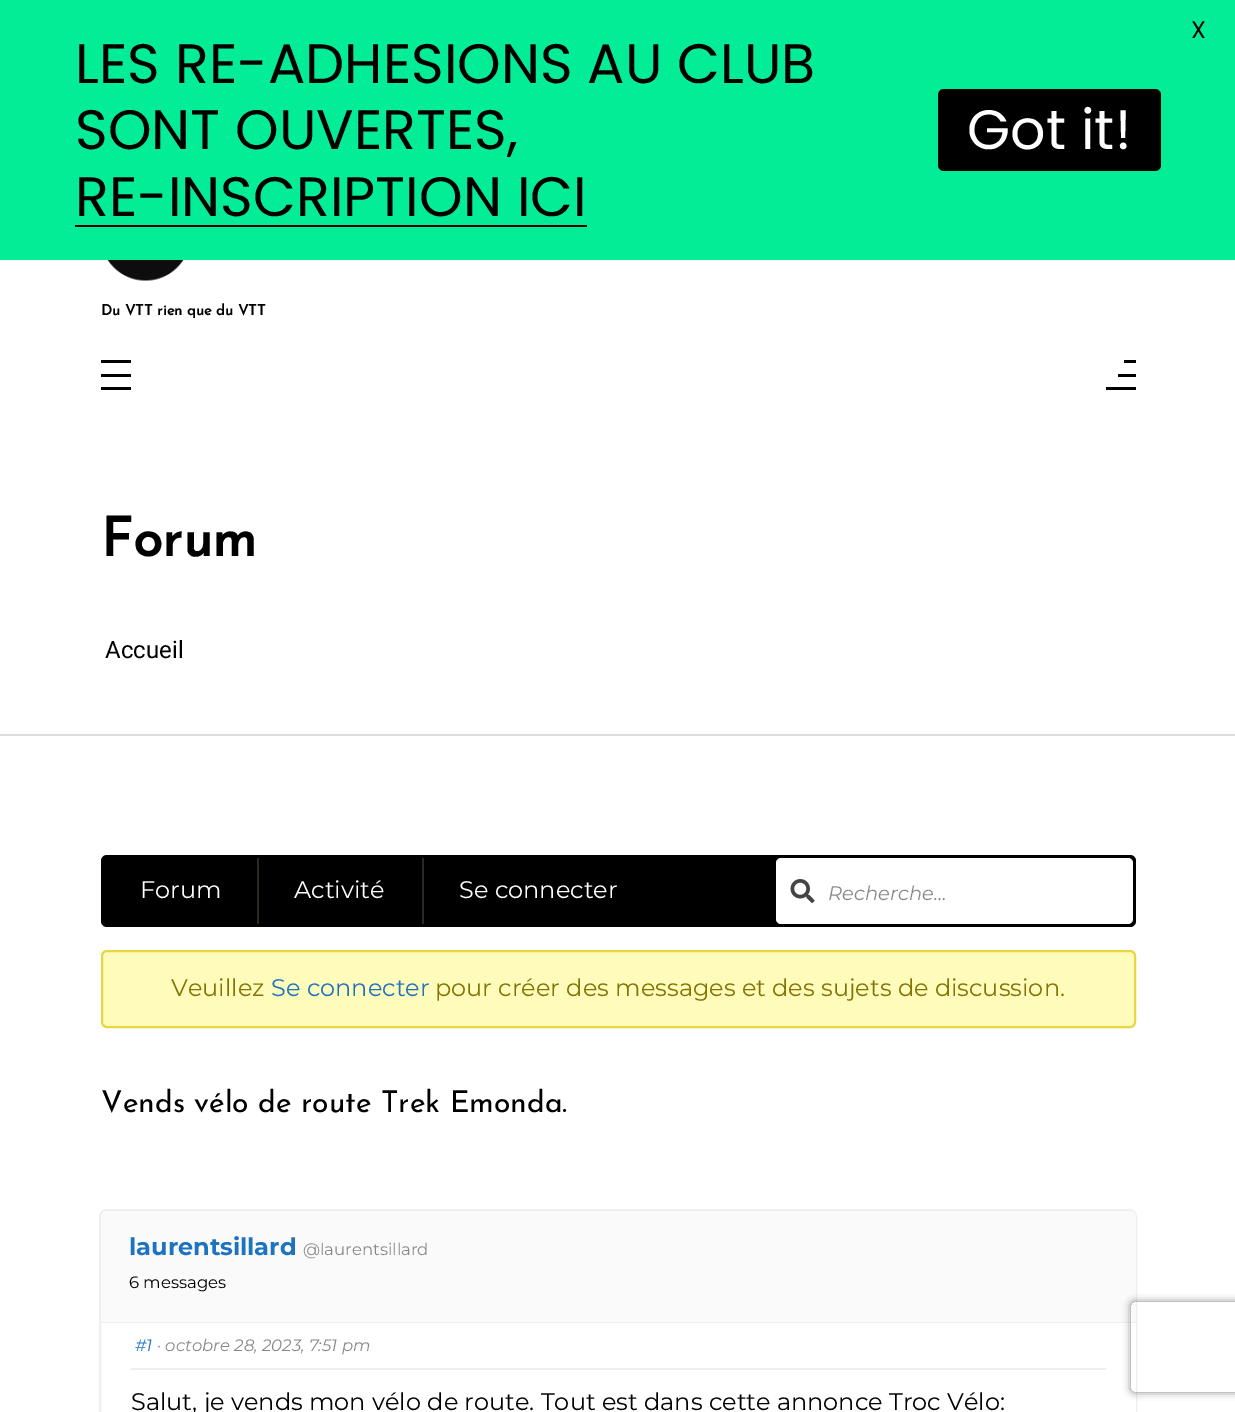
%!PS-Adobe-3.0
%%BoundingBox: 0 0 1235 1412
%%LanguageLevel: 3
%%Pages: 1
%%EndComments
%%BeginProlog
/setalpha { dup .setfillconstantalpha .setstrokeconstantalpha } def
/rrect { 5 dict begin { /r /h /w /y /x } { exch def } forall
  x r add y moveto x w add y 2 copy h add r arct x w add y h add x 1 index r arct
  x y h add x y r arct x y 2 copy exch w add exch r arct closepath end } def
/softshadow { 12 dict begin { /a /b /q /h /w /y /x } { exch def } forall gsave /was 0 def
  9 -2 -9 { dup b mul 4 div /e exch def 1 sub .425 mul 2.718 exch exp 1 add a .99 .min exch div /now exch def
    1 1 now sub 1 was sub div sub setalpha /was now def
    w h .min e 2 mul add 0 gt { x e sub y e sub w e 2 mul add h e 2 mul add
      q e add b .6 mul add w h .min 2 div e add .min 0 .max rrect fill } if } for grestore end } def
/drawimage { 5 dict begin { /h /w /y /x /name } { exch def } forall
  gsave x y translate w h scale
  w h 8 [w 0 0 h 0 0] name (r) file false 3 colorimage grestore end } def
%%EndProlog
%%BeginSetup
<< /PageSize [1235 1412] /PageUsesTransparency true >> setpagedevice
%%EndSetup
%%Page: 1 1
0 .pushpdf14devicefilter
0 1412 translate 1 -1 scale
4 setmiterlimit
1 setgray
0 0 1235 1412 rectfill
0.012 0.929 0.588 setrgbcolor
0 0 1235 260 rectfill
0 setgray
75 225 512 2 rectfill
938 89 223 82 6 rrect fill
(images/1.raw) 107 260 77 21 drawimage
101 360 30 3 rectfill
101 374 30 3 rectfill
101 387 30 3 rectfill
1124 360 12 3 rectfill
1118 374 18 3 rectfill
1106 387 30 3 rectfill
0.867 setgray
0 734 1235 2 rectfill
0 setgray
101 855 1035 72 6 rrect fill
0.169 0.165 0.133 setrgbcolor
257 858 2 66 rectfill
422 858 2 66 rectfill
1 setgray
776 858 357 66 5 rrect fill
(images/2.raw) 790 879 25 24 drawimage
1 0.984 0.733 setrgbcolor
102 951 1033 76 5 rrect gsave fill grestore
0.918 0.839 0.263 setrgbcolor
2 setlinewidth
stroke
0.933 setgray
100 1210 1036 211 7 rrect stroke
0.98 setgray
newpath 107 1211 moveto 1130 1211 lineto 1133.5 1211 1136 1213.5 1136 1217 curveto 1136 1323 lineto 101 1323 lineto 101 1217 lineto 101 1213.5 103.5 1211 107 1211 curveto closepath fill
0.933 setgray
101 1322 1035 1 rectfill
1 setgray
1135 1323 1 89 rectfill
0.933 setgray
131 1368 975 2 rectfill
gsave
newpath 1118 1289 moveto 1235 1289 lineto 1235 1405 lineto 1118 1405 lineto closepath 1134 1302 moveto 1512 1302 lineto 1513.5 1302 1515 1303.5 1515 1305 curveto 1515 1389 lineto 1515 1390.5 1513.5 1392 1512 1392 curveto 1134 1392 lineto 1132.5 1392 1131 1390.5 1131 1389 curveto 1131 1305 lineto 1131 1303.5 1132.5 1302 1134 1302 curveto closepath eoclip newpath
0.502 setgray
1131 1302 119 90 3 4 1 softshadow
grestore
/Poppins-Regular [24 0 0 -24 0 0] selectfont
0 setgray
1191 38 moveto (X) show
/Poppins-Regular [55.5 0 0 -55.5 0 0] selectfont
75 83 moveto (LES RE-ADHESIONS AU CLUB) show
75 149 moveto (SONT OUVERTES,) show
75 216 moveto (RE-INSCRIPTION ICI) show
1 setgray
967 149 moveto (Got it!) show
/JosefinSans-Bold [14.75 0 0 -14.75 0 0] selectfont
0 setgray
101 315 moveto (Du VTT rien que du VTT) show
/JosefinSans-Bold [54 0 0 -54 0 0] selectfont
101 556 moveto (Forum) show
/Roboto-Regular [24 0 0 -24 0 0] selectfont
105 658 moveto (Accueil) show
/Montserrat-Regular [24 0 0 -24 0 0] selectfont
1 setgray
140 898 moveto (Forum) show
294 898 moveto (Activité) show
459 898 moveto (Se connecter) show
/Montserrat-Italic [19.5 0 0 -19.5 0 0] selectfont
0.533 setgray
828 900 moveto (Recherche…) show
/Montserrat-Regular [24 0 0 -24 0 0] selectfont
0.51 0.451 0.008 setrgbcolor
171 996 moveto (Veuillez) show
0.118 0.451 0.745 setrgbcolor
271 996 moveto (Se connecter) show
0.51 0.451 0.008 setrgbcolor
435 996 moveto (pour créer des messages et des sujets de discussion.) show
/JosefinSans-Thin [30 0 0 -30 0 0] selectfont
0 setgray
101 1112 moveto (Vends vélo de route Trek Emonda.) show
/Montserrat-Bold [24 0 0 -24 0 0] selectfont
0.118 0.451 0.745 setrgbcolor
129 1255 moveto (laurentsillard) show
/Montserrat-Regular [16.5 0 0 -16.5 0 0] selectfont
0.533 setgray
303 1255 moveto (@laurentsillard) show
0 setgray
129 1288 moveto (6 messages) show
/Montserrat-Italic [16.5 0 0 -16.5 0 0] selectfont
0.118 0.451 0.745 setrgbcolor
135 1351 moveto (#1) show
0.533 setgray
157 1351 moveto (· octobre 28, 2023, 7:51 pm) show
/Montserrat-Regular [24 0 0 -24 0 0] selectfont
0 setgray
131 1410 moveto (Salut, je vends mon vélo de route. Tout est dans cette annonce Troc Vélo:) show
.poppdf14devicefilter showpage
%%EOF
